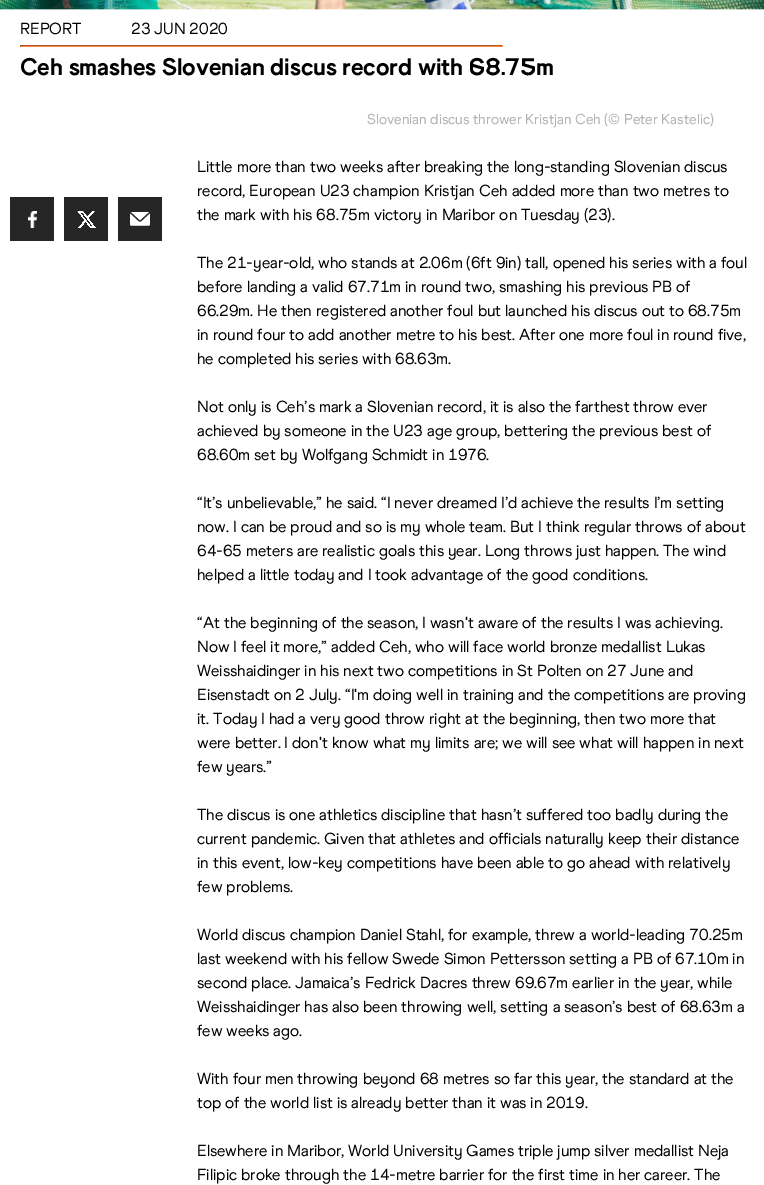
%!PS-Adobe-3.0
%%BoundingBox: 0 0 764 1185
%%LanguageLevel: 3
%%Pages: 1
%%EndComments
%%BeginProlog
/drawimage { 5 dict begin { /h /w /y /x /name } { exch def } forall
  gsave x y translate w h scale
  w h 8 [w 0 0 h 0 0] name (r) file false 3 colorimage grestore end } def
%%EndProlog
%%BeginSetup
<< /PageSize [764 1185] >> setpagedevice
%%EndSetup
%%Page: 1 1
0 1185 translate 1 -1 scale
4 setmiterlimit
1 setgray
0 0 764 1185 rectfill
(images/1.raw) 0 0 764 10 drawimage
0.667 0.353 0.157 setrgbcolor
20 45 483 1 rectfill
1 0.529 0.235 setrgbcolor
502 45 1 2 rectfill
20 46 483 1 rectfill
0.667 0.353 0.157 setrgbcolor
20 45 1 2 rectfill
0.149 setgray
10 197 44 44 rectfill
(images/2.raw) 28 211 9 17 drawimage
64 197 44 44 rectfill
(images/3.raw) 77 211 19 17 drawimage
118 197 44 44 rectfill
(images/4.raw) 130 212 20 14 drawimage
/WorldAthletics-Regular [16 0 0 -16 0 0] selectfont
0 setgray
20 34 moveto (REPORT) show
131 34 moveto (23 JUN 2020) show
/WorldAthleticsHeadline-ExtraBold [24 0 0 -24 0 0] selectfont
20 75 moveto (Ceh smashes Slovenian discus record with 68.75m) show
/WorldAthletics-Regular [14.4 0 0 -14.4 0 0] selectfont
0.698 setgray
367 124 moveto (Slovenian discus thrower Kristjan Ceh \(© Peter Kastelic\)) show
/WorldAthletics-Regular [16 0 0 -16 0 0] selectfont
0 setgray
197 172 moveto (Little more than two weeks after breaking the long-standing Slovenian discus) show
197 196 moveto (record, European U23 champion Kristjan Ceh added more than two metres to) show
197 220 moveto (the mark with his 68.75m victory in Maribor on Tuesday \(23\).) show
197 268 moveto (The 21-year-old, who stands at 2.06m \(6ft 9in\) tall, opened his series with a foul) show
197 292 moveto (before landing a valid 67.71m in round two, smashing his previous PB of) show
197 316 moveto (66.29m. He then registered another foul but launched his discus out to 68.75m) show
197 340 moveto (in round four to add another metre to his best. After one more foul in round five,) show
197 364 moveto (he completed his series with 68.63m.) show
197 412 moveto (Not only is Ceh’s mark a Slovenian record, it is also the farthest throw ever) show
197 436 moveto (achieved by someone in the U23 age group, bettering the previous best of) show
197 460 moveto (68.60m set by Wolfgang Schmidt in 1976.) show
197 508 moveto (“It’s unbelievable,” he said. “I never dreamed I’d achieve the results I’m setting) show
197 532 moveto (now. I can be proud and so is my whole team. But I think regular throws of about) show
197 556 moveto (64-65 meters are realistic goals this year. Long throws just happen. The wind) show
197 580 moveto (helped a little today and I took advantage of the good conditions.) show
197 628 moveto (“At the beginning of the season, I wasn't aware of the results I was achieving.) show
197 652 moveto (Now I feel it more,” added Ceh, who will face world bronze medallist Lukas) show
197 676 moveto (Weisshaidinger in his next two competitions in St Polten on 27 June and) show
197 700 moveto (Eisenstadt on 2 July. “I'm doing well in training and the competitions are proving) show
197 724 moveto (it. Today I had a very good throw right at the beginning, then two more that) show
197 748 moveto (were better. I don't know what my limits are; we will see what will happen in next) show
197 772 moveto (few years.”) show
197 820 moveto (The discus is one athletics discipline that hasn’t suffered too badly during the) show
197 844 moveto (current pandemic. Given that athletes and officials naturally keep their distance) show
197 868 moveto (in this event, low-key competitions have been able to go ahead with relatively) show
197 892 moveto (few problems.) show
197 940 moveto (World discus champion Daniel Stahl, for example, threw a world-leading 70.25m) show
197 964 moveto (last weekend with his fellow Swede Simon Pettersson setting a PB of 67.10m in) show
197 988 moveto (second place. Jamaica’s Fedrick Dacres threw 69.67m earlier in the year, while) show
197 1012 moveto (Weisshaidinger has also been throwing well, setting a season’s best of 68.63m a) show
197 1036 moveto (few weeks ago.) show
197 1084 moveto (With four men throwing beyond 68 metres so far this year, the standard at the) show
197 1108 moveto (top of the world list is already better than it was in 2019.) show
197 1156 moveto (Elsewhere in Maribor, World University Games triple jump silver medallist Neja) show
197 1180 moveto (Filipic broke through the 14-metre barrier for the first time in her career. The) show
showpage
%%EOF
